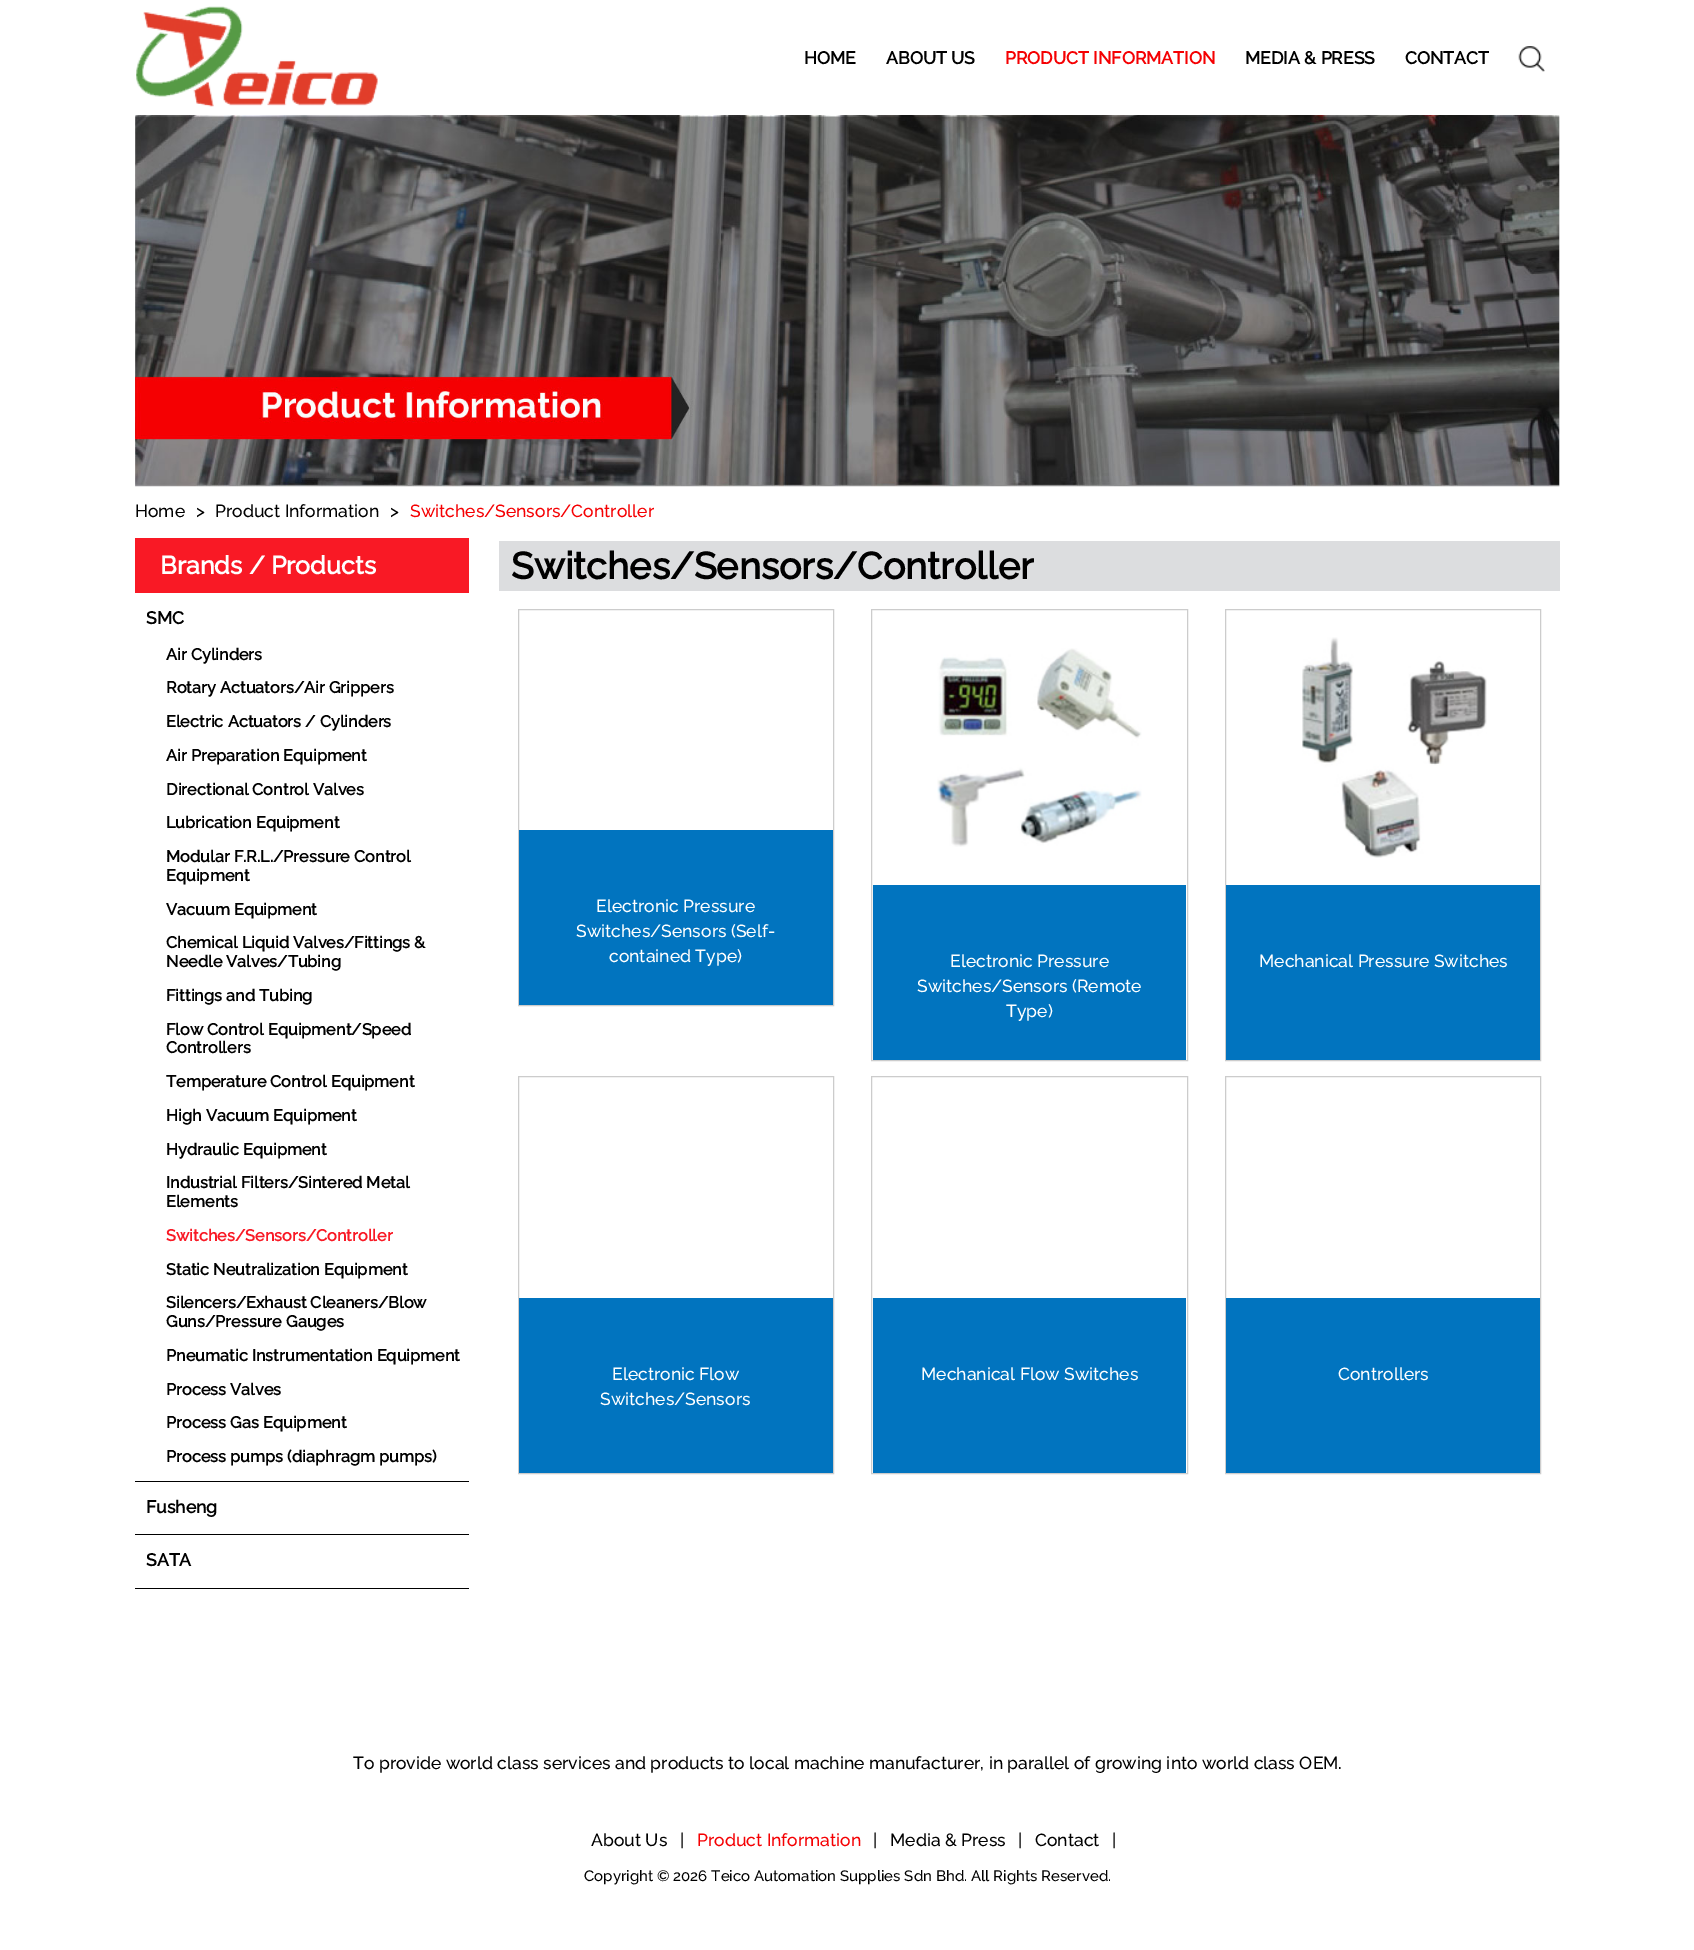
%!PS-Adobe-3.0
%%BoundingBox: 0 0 1694 1950
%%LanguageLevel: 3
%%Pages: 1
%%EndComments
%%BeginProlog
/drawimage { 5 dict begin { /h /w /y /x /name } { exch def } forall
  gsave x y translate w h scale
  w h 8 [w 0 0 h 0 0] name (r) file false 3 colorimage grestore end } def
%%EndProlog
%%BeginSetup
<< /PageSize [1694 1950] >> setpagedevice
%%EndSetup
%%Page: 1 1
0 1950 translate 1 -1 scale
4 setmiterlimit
1 setgray
0 0 1694 1950 rectfill
(images/1.raw) 136 6 242 101 drawimage
(images/2.raw) 1518 46 27 26 drawimage
(images/3.raw) 135 115 1425 372 drawimage
0.976 0.098 0.145 setrgbcolor
135 538 334 55 rectfill
0 setgray
135 1481 334 1 rectfill
135 1534 334 1 rectfill
135 1588 334 1 rectfill
0.863 0.867 0.875 setrgbcolor
499 541 1061 50 rectfill
0.8 setgray
518.5 609.5 315 396 rectstroke
0.004 0.455 0.749 setrgbcolor
519 830 314 175 rectfill
0.8 setgray
871.5 609.5 316 451 rectstroke
(images/4.raw) 937 648 205 199 drawimage
0.004 0.455 0.749 setrgbcolor
873 885 313 175 rectfill
0.8 setgray
1225.5 609.5 315 451 rectstroke
(images/5.raw) 1302 637 185 221 drawimage
0.004 0.455 0.749 setrgbcolor
1226 885 314 175 rectfill
0.8 setgray
518.5 1076.5 315 397 rectstroke
0.004 0.455 0.749 setrgbcolor
519 1298 314 175 rectfill
0.8 setgray
871.5 1076.5 316 397 rectstroke
0.004 0.455 0.749 setrgbcolor
873 1298 313 175 rectfill
0.8 setgray
1225.5 1076.5 315 397 rectstroke
0.004 0.455 0.749 setrgbcolor
1226 1298 314 175 rectfill
/Raleway-Bold [17.5 0 0 -17.5 0 0] selectfont
0 setgray
804 64 moveto (HOME) show
886 64 moveto (ABOUT US) show
0.961 0 0.008 setrgbcolor
1005 64 moveto (PRODUCT INFORMATION) show
0 setgray
1245 64 moveto (MEDIA & PRESS) show
1405 64 moveto (CONTACT) show
/Raleway-Thin [17.5 0 0 -17.5 0 0] selectfont
135 517 moveto (Home) show
196 517 moveto (>) show
215 517 moveto (Product Information) show
390 517 moveto (>) show
0.961 0 0.008 setrgbcolor
410 517 moveto (Switches/Sensors/Controller) show
/Raleway-Bold [25 0 0 -25 0 0] selectfont
1 setgray
160 574 moveto (Brands / Products) show
/Raleway-Bold [17.5 0 0 -17.5 0 0] selectfont
0 setgray
146 624 moveto (SMC) show
/Raleway-Bold [16.25 0 0 -16.25 0 0] selectfont
166 660 moveto (Air Cylinders) show
166 693 moveto (Rotary Actuators/Air Grippers) show
166 727 moveto (Electric Actuators / Cylinders) show
166 761 moveto (Air Preparation Equipment) show
166 795 moveto (Directional Control Valves) show
166 828 moveto (Lubrication Equipment) show
166 862 moveto (Modular F.R.L./Pressure Control) show
166 881 moveto (Equipment) show
166 915 moveto (Vacuum Equipment) show
166 948 moveto (Chemical Liquid Valves/Fittings &) show
166 967 moveto (Needle Valves/Tubing) show
166 1001 moveto (Fittings and Tubing) show
166 1035 moveto (Flow Control Equipment/Speed) show
166 1053 moveto (Controllers) show
166 1087 moveto (Temperature Control Equipment) show
166 1121 moveto (High Vacuum Equipment) show
166 1155 moveto (Hydraulic Equipment) show
166 1188 moveto (Industrial Filters/Sintered Metal) show
166 1207 moveto (Elements) show
0.976 0.098 0.145 setrgbcolor
166 1241 moveto (Switches/Sensors/Controller) show
0 setgray
166 1275 moveto (Static Neutralization Equipment) show
166 1308 moveto (Silencers/Exhaust Cleaners/Blow) show
166 1327 moveto (Guns/Pressure Gauges) show
166 1361 moveto (Pneumatic Instrumentation Equipment) show
166 1395 moveto (Process Valves) show
166 1428 moveto (Process Gas Equipment) show
166 1462 moveto (Process pumps \(diaphragm pumps\)) show
/Raleway-Bold [17.5 0 0 -17.5 0 0] selectfont
146 1513 moveto (Fusheng) show
146 1566 moveto (SATA) show
/Raleway-Bold [37.5 0 0 -37.5 0 0] selectfont
511 579 moveto (Switches/Sensors/Controller) show
/Raleway-Thin [17.5 0 0 -17.5 0 0] selectfont
1 setgray
596 912 moveto (Electronic Pressure) show
576 937 moveto (Switches/Sensors \(Self-) show
609 962 moveto (contained Type\)) show
950 967 moveto (Electronic Pressure) show
917 992 moveto (Switches/Sensors \(Remote) show
1006 1017 moveto (Type\)) show
1259 967 moveto (Mechanical Pressure Switches) show
612 1380 moveto (Electronic Flow) show
600 1405 moveto (Switches/Sensors) show
921 1380 moveto (Mechanical Flow Switches) show
1338 1380 moveto (Controllers) show
0 setgray
353 1769 moveto (To provide world class services and products to local machine manufacturer, in parallel of growing into world class OEM.) show
591 1846 moveto (About Us) show
680 1846 moveto (|) show
0.961 0 0.008 setrgbcolor
697 1846 moveto (Product Information) show
0 setgray
873 1846 moveto (|) show
890 1846 moveto (Media & Press) show
1018 1846 moveto (|) show
1035 1846 moveto (Contact) show
1112 1846 moveto (|) show
/Raleway-Thin [15 0 0 -15 0 0] selectfont
584 1881 moveto (Copyright © 2026 Teico Automation Supplies Sdn Bhd. All Rights Reserved.) show
showpage
%%EOF
